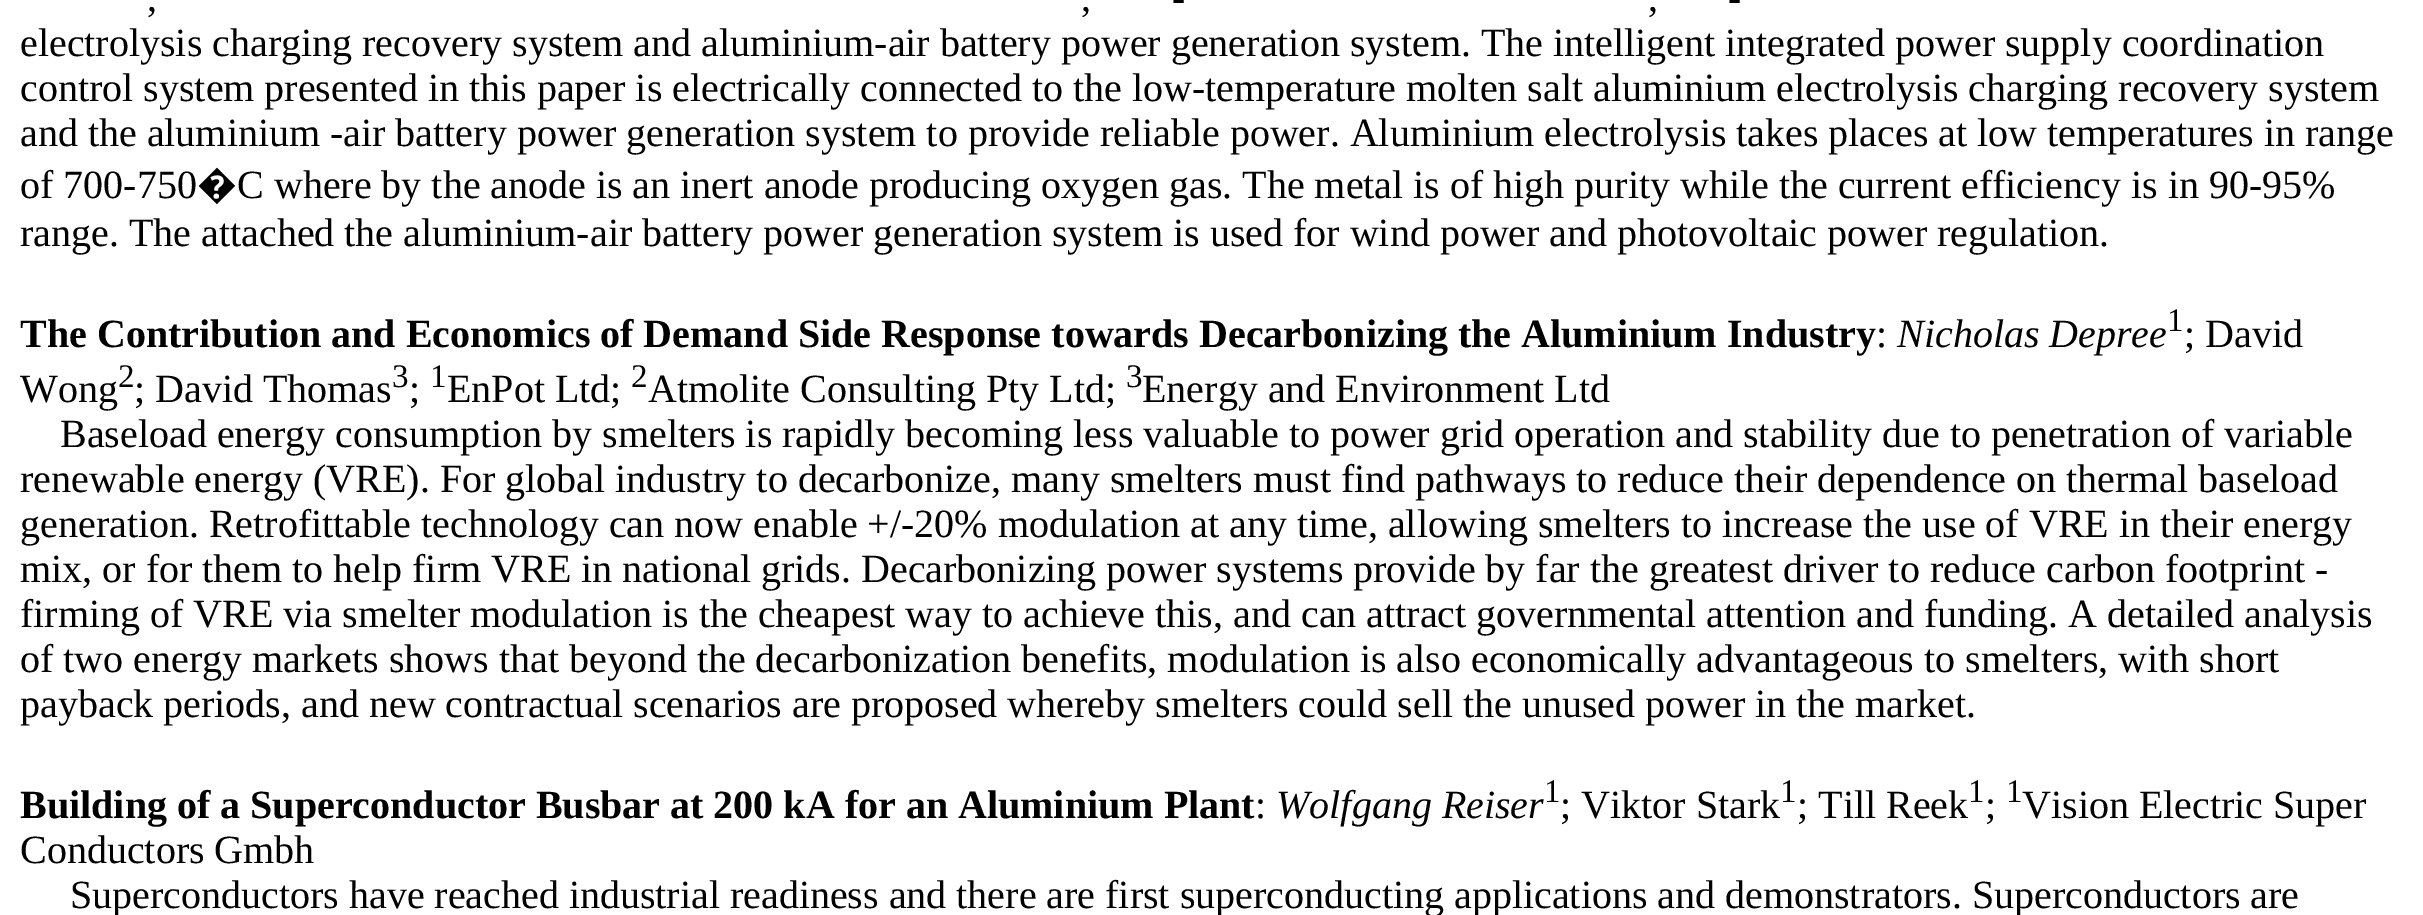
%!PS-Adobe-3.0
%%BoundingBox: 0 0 2423 915
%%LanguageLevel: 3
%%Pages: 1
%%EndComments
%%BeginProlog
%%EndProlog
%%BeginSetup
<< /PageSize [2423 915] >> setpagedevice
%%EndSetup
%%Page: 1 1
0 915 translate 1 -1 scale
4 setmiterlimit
1 setgray
0 0 2423 915 rectfill
/LiberationSerif-Regular [40 0 0 -40 0 0] selectfont
0 setgray
1172 11 moveto (-) show
1728 11 moveto (-) show
147 11 moveto (,) show
1081 11 moveto (,) show
1648 11 moveto (,) show
20 56 moveto (electrolysis charging recovery system and aluminium-air battery power generation system. The intelligent integrated power supply coordination) show
20 101 moveto (control system presented in this paper is electrically connected to the low-temperature molten salt aluminium electrolysis charging recovery system) show
20 146 moveto (and the aluminium -air battery power generation system to provide reliable power. Aluminium electrolysis takes places at low temperatures in range) show
20 198 moveto (of 700-750) show
/NotoSans-Regular [40 0 0 -40 0 0] selectfont
197 198 moveto (�) show
/LiberationSerif-Regular [40 0 0 -40 0 0] selectfont
237 198 moveto (C where by the anode is an inert anode producing oxygen gas. The metal is of high purity while the current efficiency is in 90-95%) show
20 246 moveto (range. The attached the aluminium-air battery power generation system is used for wind power and photovoltaic power regulation.) show
/LiberationSerif-Bold [40 0 0 -40 0 0] selectfont
20 347 moveto (The Contribution and Economics of Demand Side Response towards Decarbonizing the Aluminium Industry) show
/LiberationSerif-Regular [40 0 0 -40 0 0] selectfont
1876 347 moveto (:) show
/LiberationSerif-Italic [40 0 0 -40 0 0] selectfont
1897 347 moveto (Nicholas Depree) show
/LiberationSerif-Regular [33 0 0 -33 0 0] selectfont
2167 331 moveto (1) show
/LiberationSerif-Regular [40 0 0 -40 0 0] selectfont
2184 347 moveto (; David) show
20 402 moveto (Wong) show
/LiberationSerif-Regular [33 0 0 -33 0 0] selectfont
118 387 moveto (2) show
/LiberationSerif-Regular [40 0 0 -40 0 0] selectfont
134 402 moveto (; David Thomas) show
/LiberationSerif-Regular [33 0 0 -33 0 0] selectfont
392 387 moveto (3) show
/LiberationSerif-Regular [40 0 0 -40 0 0] selectfont
409 402 moveto (;) show
/LiberationSerif-Regular [33 0 0 -33 0 0] selectfont
430 387 moveto (1) show
/LiberationSerif-Regular [40 0 0 -40 0 0] selectfont
447 402 moveto (EnPot Ltd;) show
/LiberationSerif-Regular [33 0 0 -33 0 0] selectfont
631 387 moveto (2) show
/LiberationSerif-Regular [40 0 0 -40 0 0] selectfont
648 402 moveto (Atmolite Consulting Pty Ltd;) show
/LiberationSerif-Regular [33 0 0 -33 0 0] selectfont
1126 387 moveto (3) show
/LiberationSerif-Regular [40 0 0 -40 0 0] selectfont
1142 402 moveto (Energy and Environment Ltd) show
60 447 moveto (Baseload energy consumption by smelters is rapidly becoming less valuable to power grid operation and stability due to penetration of variable) show
20 492 moveto (renewable energy \(VRE\). For global industry to decarbonize, many smelters must find pathways to reduce their dependence on thermal baseload) show
20 537 moveto (generation. Retrofittable technology can now enable +/-20% modulation at any time, allowing smelters to increase the use of VRE in their energy) show
20 582 moveto (mix, or for them to help firm VRE in national grids. Decarbonizing power systems provide by far the greatest driver to reduce carbon footprint -) show
20 627 moveto (firming of VRE via smelter modulation is the cheapest way to achieve this, and can attract governmental attention and funding. A detailed analysis) show
20 672 moveto (of two energy markets shows that beyond the decarbonization benefits, modulation is also economically advantageous to smelters, with short) show
20 717 moveto (payback periods, and new contractual scenarios are proposed whereby smelters could sell the unused power in the market.) show
/LiberationSerif-Bold [40 0 0 -40 0 0] selectfont
20 818 moveto (Building of a Superconductor Busbar at 200 kA for an Aluminium Plant) show
/LiberationSerif-Regular [40 0 0 -40 0 0] selectfont
1255 818 moveto (:) show
/LiberationSerif-Italic [40 0 0 -40 0 0] selectfont
1276 818 moveto (Wolfgang Reiser) show
/LiberationSerif-Regular [33 0 0 -33 0 0] selectfont
1544 802 moveto (1) show
/LiberationSerif-Regular [40 0 0 -40 0 0] selectfont
1560 818 moveto (; Viktor Stark) show
/LiberationSerif-Regular [33 0 0 -33 0 0] selectfont
1780 802 moveto (1) show
/LiberationSerif-Regular [40 0 0 -40 0 0] selectfont
1797 818 moveto (; Till Reek) show
/LiberationSerif-Regular [33 0 0 -33 0 0] selectfont
1968 802 moveto (1) show
/LiberationSerif-Regular [40 0 0 -40 0 0] selectfont
1985 818 moveto (;) show
/LiberationSerif-Regular [33 0 0 -33 0 0] selectfont
2006 802 moveto (1) show
/LiberationSerif-Regular [40 0 0 -40 0 0] selectfont
2022 818 moveto (Vision Electric Super) show
20 863 moveto (Conductors Gmbh) show
70 908 moveto (Superconductors have reached industrial readiness and there are first superconducting applications and demonstrators. Superconductors are) show
showpage
%%EOF
